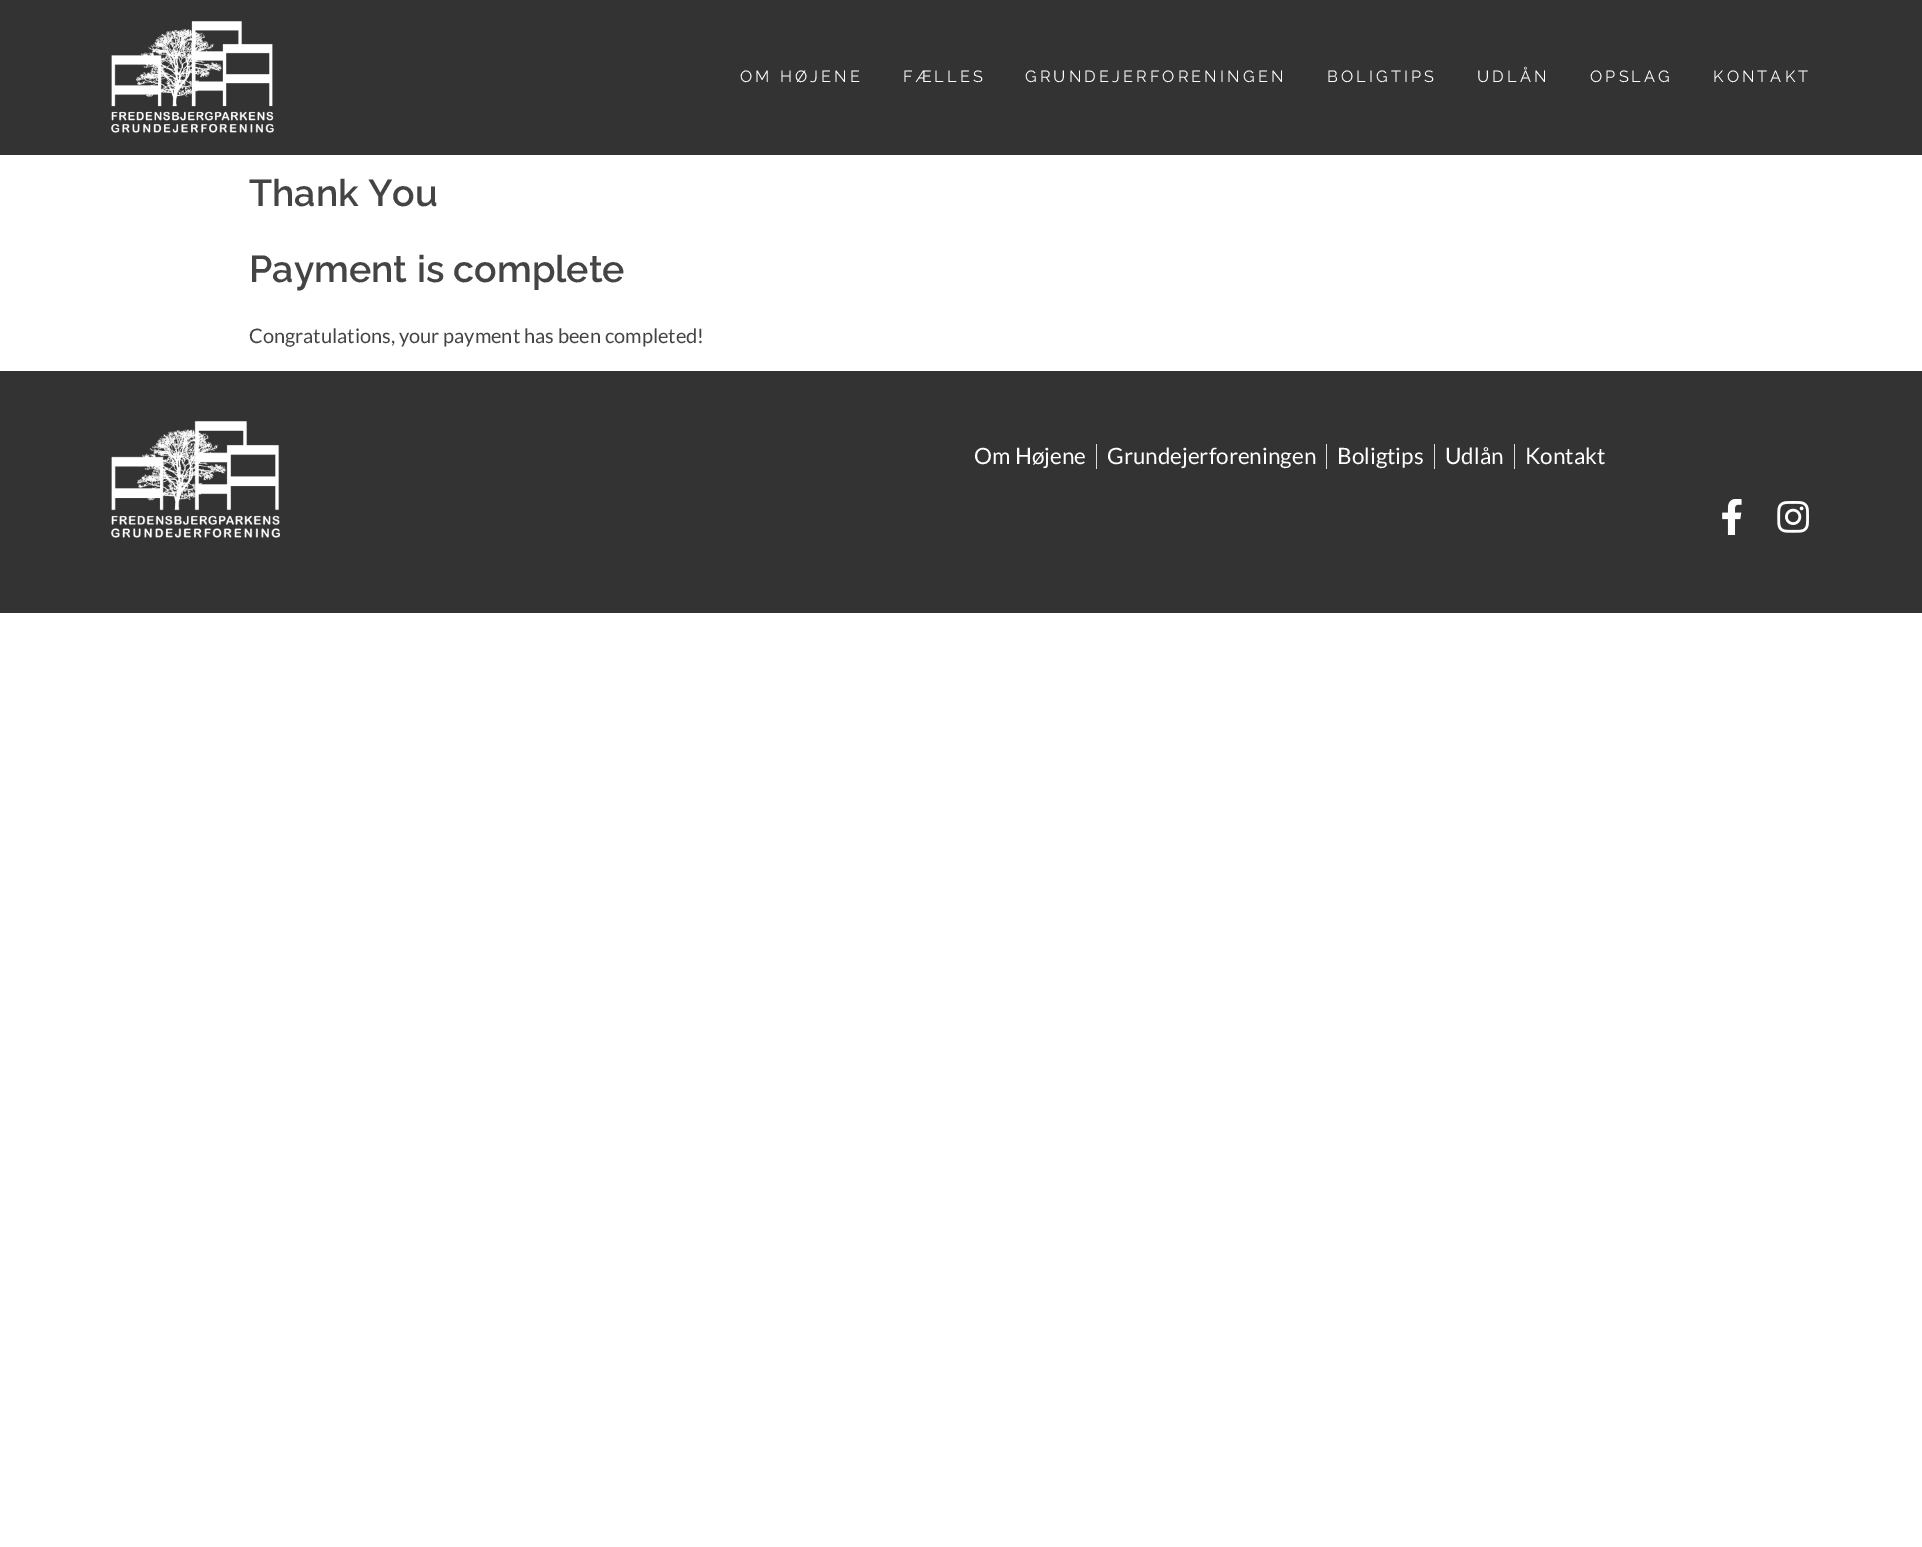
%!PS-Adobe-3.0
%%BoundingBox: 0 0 1922 1547
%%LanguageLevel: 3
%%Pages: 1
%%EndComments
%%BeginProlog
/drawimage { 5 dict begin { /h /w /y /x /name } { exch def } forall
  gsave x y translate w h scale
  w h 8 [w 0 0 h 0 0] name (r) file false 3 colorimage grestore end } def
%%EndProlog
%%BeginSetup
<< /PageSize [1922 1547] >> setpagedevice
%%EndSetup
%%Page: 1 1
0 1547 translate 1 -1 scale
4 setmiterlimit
1 setgray
0 0 1922 1547 rectfill
0.2 setgray
0 0 1922 155 rectfill
(images/1.raw) 111 21 163 112 drawimage
0 371 1922 242 rectfill
(images/2.raw) 111 421 169 117 drawimage
0.867 setgray
1096 444 1 25 rectfill
1326 444 1 25 rectfill
1434 444 1 25 rectfill
1514 444 1 25 rectfill
(images/3.raw) 1722 499 20 36 drawimage
(images/4.raw) 1777 501 32 32 drawimage
/Raleway-Regular [16.25 0 0 -16.25 0 0] selectfont
1 setgray
740 82 moveto 3.1 0 (OM HØJENE) ashow
903 82 moveto 3.1 0 (FÆLLES) ashow
1025 82 moveto 3.1 0 (GRUNDEJERFORENINGEN) ashow
1327 82 moveto 3.1 0 (BOLIGTIPS) ashow
1477 82 moveto 3.1 0 (UDLÅN) ashow
1590 82 moveto 3.1 0 (OPSLAG) ashow
1713 82 moveto 3.1 0 (KONTAKT) ashow
/Raleway-SemiBold [37.5 0 0 -37.5 0 0] selectfont
0.267 setgray
249 206 moveto (Thank You) show
249 282 moveto (Payment is complete) show
/Lato-Regular [20 0 0 -20 0 0] selectfont
249 343 moveto (Congratulations, your payment has been completed!) show
/Lato-Regular [22.5 0 0 -22.5 0 0] selectfont
1 setgray
974 464 moveto (Om Højene) show
1107 464 moveto (Grundejerforeningen) show
1337 464 moveto (Boligtips) show
1445 464 moveto (Udlån) show
1525 464 moveto (Kontakt) show
showpage
%%EOF
